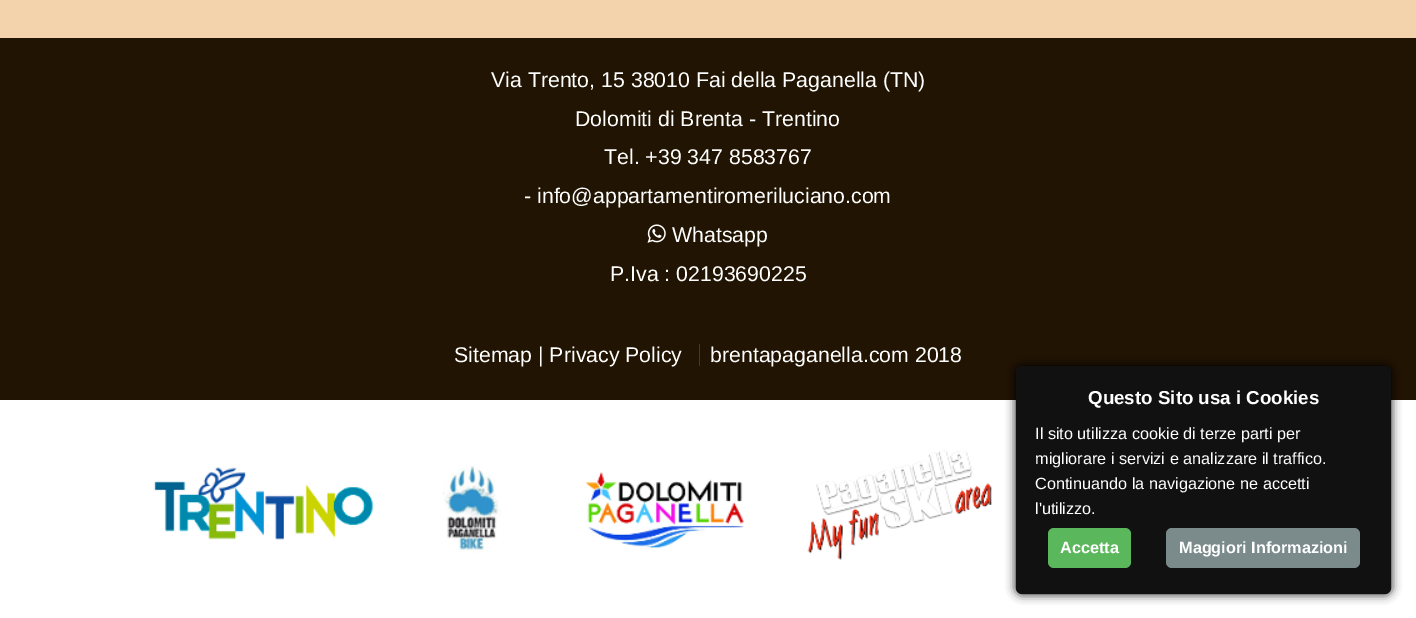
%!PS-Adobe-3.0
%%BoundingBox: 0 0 1416 618
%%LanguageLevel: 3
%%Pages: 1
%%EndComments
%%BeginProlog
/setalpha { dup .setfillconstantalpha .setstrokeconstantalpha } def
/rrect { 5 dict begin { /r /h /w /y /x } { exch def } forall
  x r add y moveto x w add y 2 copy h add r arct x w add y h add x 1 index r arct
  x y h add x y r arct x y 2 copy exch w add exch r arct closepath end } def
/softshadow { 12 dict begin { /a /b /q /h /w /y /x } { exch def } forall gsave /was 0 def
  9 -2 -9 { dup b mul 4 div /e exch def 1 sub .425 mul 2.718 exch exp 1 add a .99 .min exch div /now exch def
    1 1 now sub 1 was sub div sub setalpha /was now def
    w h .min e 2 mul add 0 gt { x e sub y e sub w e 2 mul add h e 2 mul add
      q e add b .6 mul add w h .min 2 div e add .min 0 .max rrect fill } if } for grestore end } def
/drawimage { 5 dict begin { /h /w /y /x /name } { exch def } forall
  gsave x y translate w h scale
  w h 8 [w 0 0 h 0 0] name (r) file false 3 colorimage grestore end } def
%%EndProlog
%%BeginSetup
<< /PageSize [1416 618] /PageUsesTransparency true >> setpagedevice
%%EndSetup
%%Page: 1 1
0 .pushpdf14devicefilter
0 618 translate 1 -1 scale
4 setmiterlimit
0.129 0.078 0.012 setrgbcolor
0 0 1416 618 rectfill
0.949 0.827 0.671 setrgbcolor
0 0 1416 38 rectfill
(images/1.raw) 647 224 19 19 drawimage
0.259 0.227 0.184 setrgbcolor
699 344 1 22 rectfill
1 setgray
0 400 1416 218 rectfill
(images/2.raw) 153 467 221 73 drawimage
(images/3.raw) 442 465 60 88 drawimage
(images/4.raw) 585 472 159 77 drawimage
(images/5.raw) 807 450 185 110 drawimage
0 setgray
1016 366 375 228 6 5 1 softshadow
0.067 setgray
1016 366 375 228 6 rrect fill
0.357 0.718 0.357 setrgbcolor
1048 528 83 40 6 rrect fill
0.482 0.541 0.545 setrgbcolor
1166 528 194 40 6 rrect fill
/LiberationSans-Regular [21.3 0 0 -21.3 0 0] selectfont
1 setgray
491 87 moveto (Via Trento, 15 38010 Fai della Paganella \(TN\)) show
575 126 moveto (Dolomiti di Brenta - Trentino) show
604 164 moveto (Tel. +39 347 8583767) show
524 203 moveto (- info@appartamentiromeriluciano.com) show
672 242 moveto (Whatsapp) show
610 281 moveto (P.Iva : 02193690225) show
454 362 moveto (Sitemap | Privacy Policy) show
710 362 moveto (brentapaganella.com 2018) show
/LiberationSans-Bold [18.75 0 0 -18.75 0 0] selectfont
1088 404 moveto (Questo Sito usa i Cookies) show
/LiberationSans-Regular [16.25 0 0 -16.25 0 0] selectfont
1035 439 moveto (Il sito utilizza cookie di terze parti per) show
1035 464 moveto (migliorare i servizi e analizzare il traffico.) show
1035 489 moveto (Continuando la navigazione ne accetti) show
1035 514 moveto (l'utilizzo.) show
/LiberationSans-Bold [16.25 0 0 -16.25 0 0] selectfont
1060 553 moveto (Accetta) show
1179 553 moveto (Maggiori Informazioni) show
.poppdf14devicefilter showpage
%%EOF
